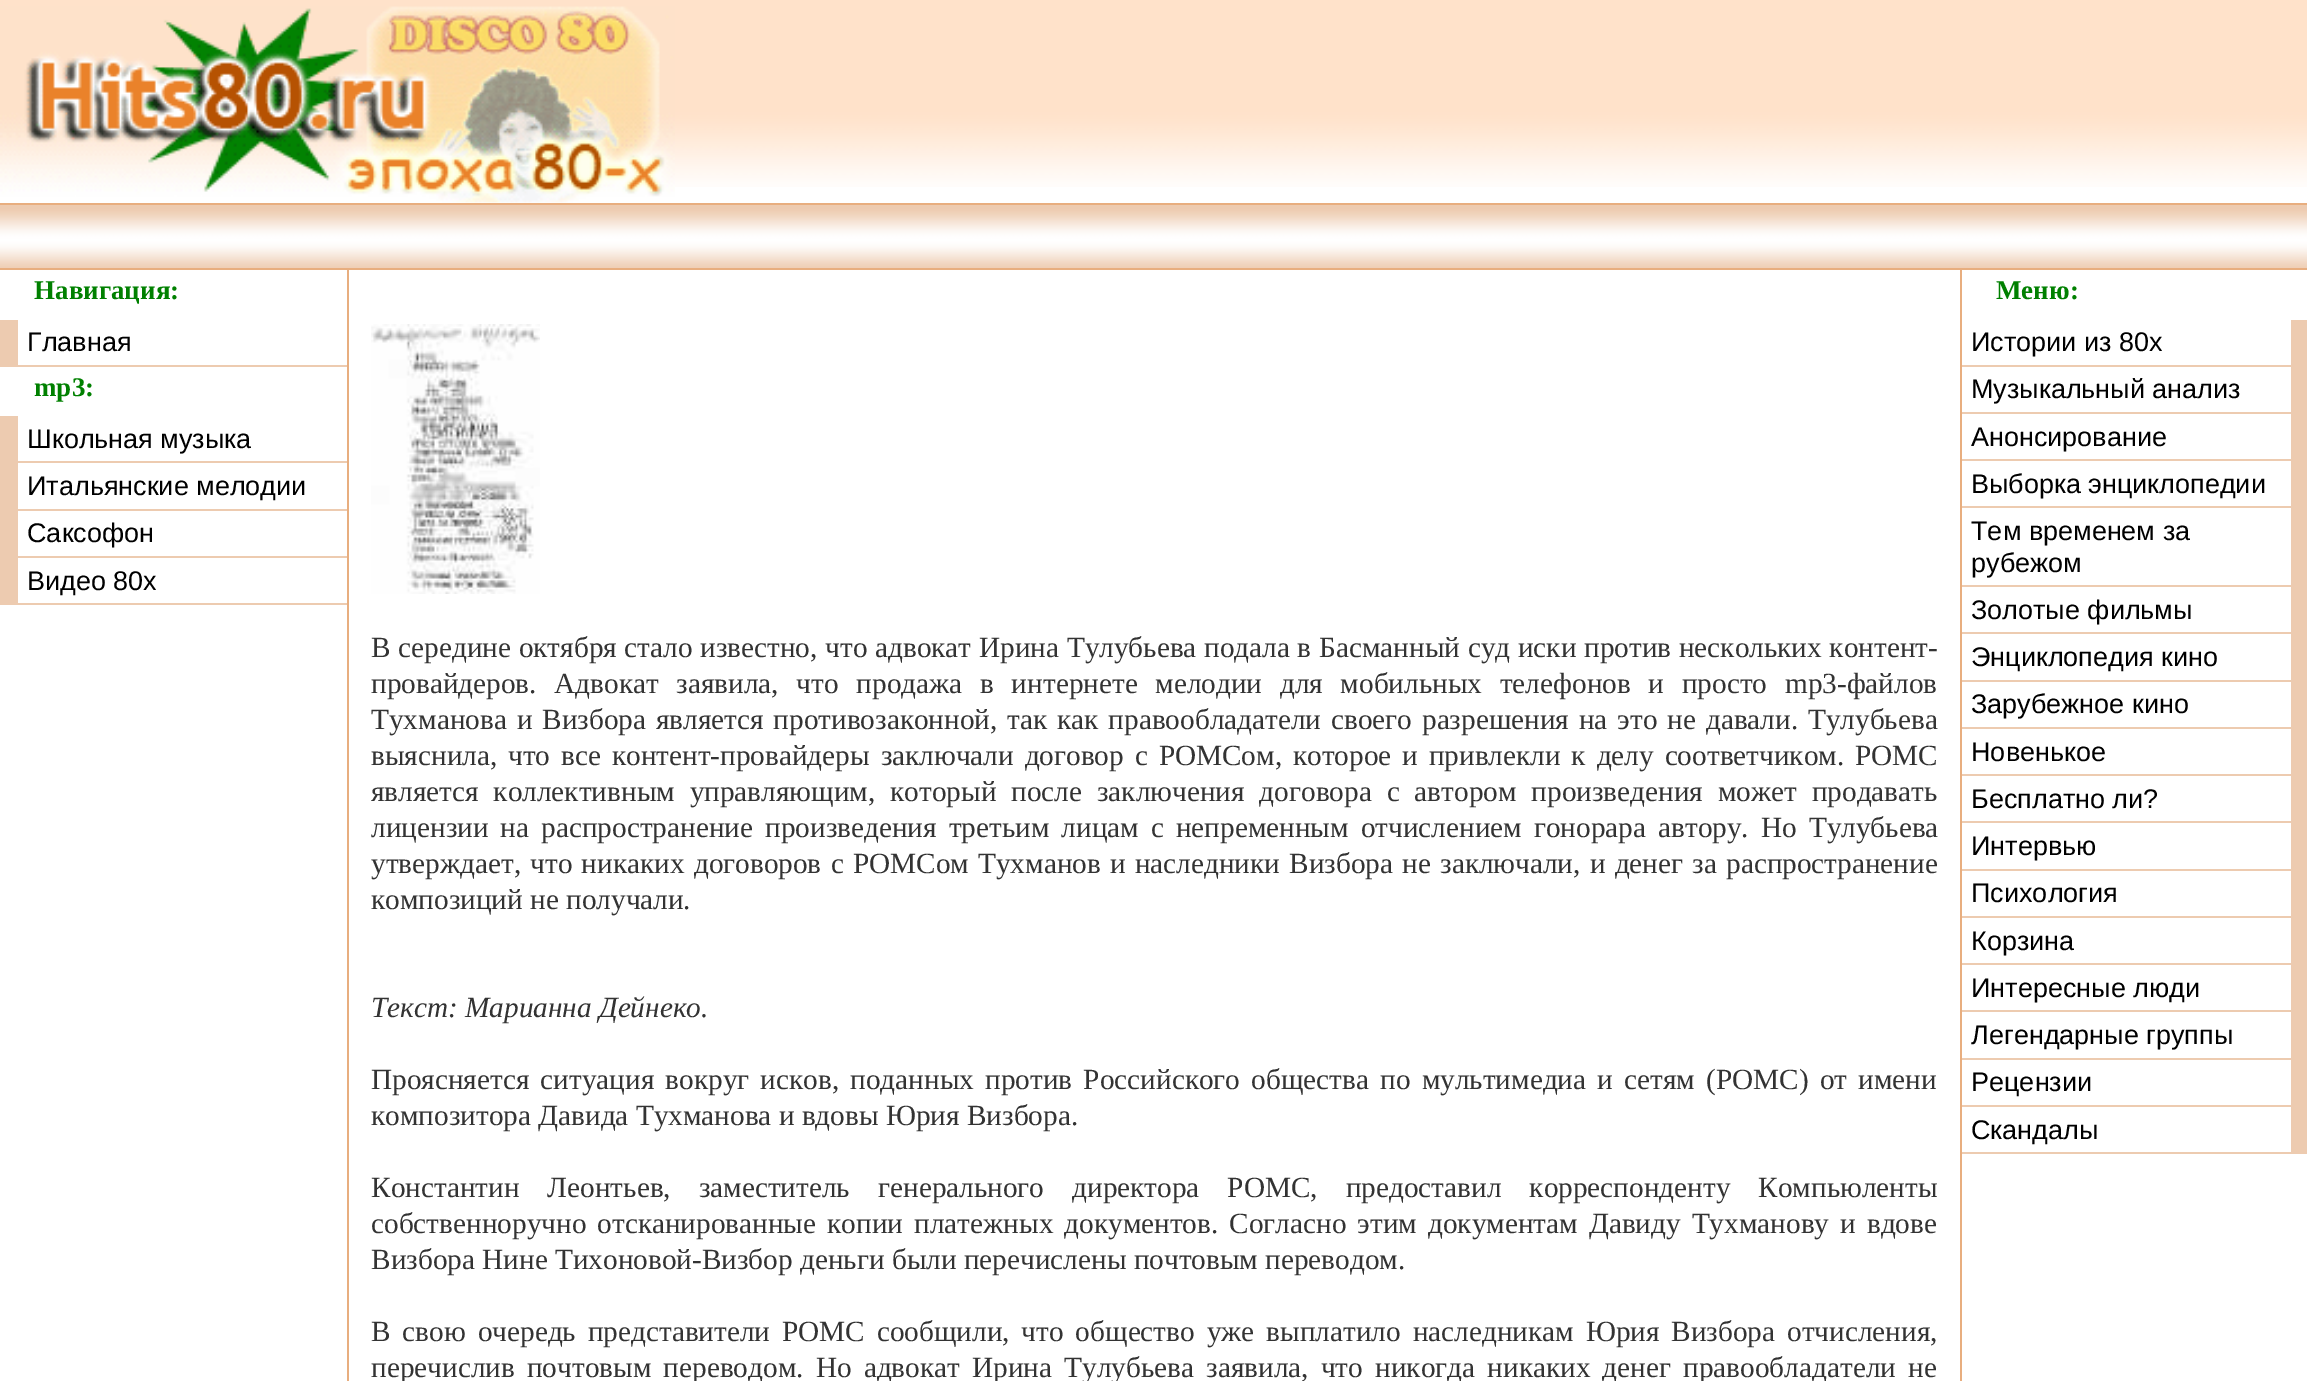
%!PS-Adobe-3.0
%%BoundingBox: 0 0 2307 1381
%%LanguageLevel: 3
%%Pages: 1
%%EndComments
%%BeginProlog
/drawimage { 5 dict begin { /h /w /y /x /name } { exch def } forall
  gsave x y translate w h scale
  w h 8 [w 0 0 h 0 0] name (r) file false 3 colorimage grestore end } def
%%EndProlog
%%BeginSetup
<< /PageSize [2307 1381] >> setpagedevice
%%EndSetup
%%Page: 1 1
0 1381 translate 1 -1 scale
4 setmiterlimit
1 setgray
0 0 2307 1381 rectfill
(images/1.raw) 0 0 2307 187 drawimage
(images/2.raw) 0 6 675 197 drawimage
(images/3.raw) 0 205 2307 63 drawimage
0.91 0.682 0.498 setrgbcolor
0 203 2307 2 rectfill
0 268 2307 2 rectfill
0.929 0.796 0.69 setrgbcolor
18 365 329 2 rectfill
0 320 18 47 rectfill
18 461 329 2 rectfill
0 416 18 189 rectfill
18 509 329 2 rectfill
18 556 329 2 rectfill
18 603 329 2 rectfill
0.91 0.682 0.498 setrgbcolor
1960 270 2 1111 rectfill
347 270 2 1111 rectfill
(images/4.raw) 371 324 169 270 drawimage
0.929 0.796 0.69 setrgbcolor
2291 320 16 45 rectfill
1962 365 345 2 rectfill
2291 367 16 45 rectfill
1962 412 345 2 rectfill
2291 414 16 45 rectfill
1962 459 345 2 rectfill
2291 461 16 124 rectfill
1962 506 329 2 rectfill
1962 585 345 2 rectfill
2291 587 16 93 rectfill
1962 632 329 2 rectfill
1962 680 345 2 rectfill
2291 682 16 45 rectfill
1962 727 345 2 rectfill
2291 729 16 45 rectfill
1962 774 345 2 rectfill
2291 776 16 93 rectfill
1962 821 329 2 rectfill
1962 869 345 2 rectfill
2291 871 16 45 rectfill
1962 916 345 2 rectfill
2291 918 16 45 rectfill
1962 963 345 2 rectfill
2291 965 16 93 rectfill
1962 1010 329 2 rectfill
1962 1058 345 2 rectfill
2291 1060 16 45 rectfill
1962 1105 345 2 rectfill
2291 1107 16 45 rectfill
1962 1152 345 2 rectfill
/LiberationSerif-Bold [27 0 0 -27 0 0] selectfont
0 0.502 0 setrgbcolor
34 299 moveto (Навигация:) show
/LiberationSans-Regular [27 0 0 -27 0 0] selectfont
0 setgray
27 351 moveto (Главная) show
/LiberationSerif-Bold [27 0 0 -27 0 0] selectfont
0 0.502 0 setrgbcolor
34 396 moveto (mp3:) show
/LiberationSans-Regular [27 0 0 -27 0 0] selectfont
0 setgray
27 448 moveto (Школьная музыка) show
27 495 moveto (Итальянские мелодии) show
27 542 moveto (Саксофон) show
27 590 moveto (Видео 80х) show
/LiberationSerif-Regular [29.25 0 0 -29.25 0 0] selectfont
0.2 setgray
371 657 moveto 0.4 0 32 (В середине октября стало известно, что адвокат Ирина Тулубьева подала в Басманный суд иски против нескольких контент-) widthshow
371 693 moveto 10.4 0 32 (провайдеров. Адвокат заявила, что продажа в интернете мелодии для мобильных телефонов и просто mp3-файлов) widthshow
371 729 moveto 2.6 0 32 (Тухманова и Визбора является противозаконной, так как правообладатели своего разрешения на это не давали. Тулубьева) widthshow
371 765 moveto 3.6 0 32 (выяснила, что все контент-провайдеры заключали договор с РОМСом, которое и привлекли к делу соответчиком. РОМС) widthshow
371 801 moveto 7.6 0 32 (является коллективным управляющим, который после заключения договора с автором произведения может продавать) widthshow
371 837 moveto 4.75 0 32 (лицензии на распространение произведения третьим лицам с непременным отчислением гонорара автору. Но Тулубьева) widthshow
371 873 moveto 1.9 0 32 (утверждает, что никаких договоров с РОМСом Тухманов и наследники Визбора не заключали, и денег за распространение) widthshow
371 909 moveto (композиций не получали.) show
/LiberationSerif-Italic [29.25 0 0 -29.25 0 0] selectfont
371 1017 moveto (Текст: Марианна Дейнеко.) show
/LiberationSerif-Regular [29.25 0 0 -29.25 0 0] selectfont
371 1089 moveto 3.9 0 32 (Проясняется ситуация вокруг исков, поданных против Российского общества по мультимедиа и сетям \(РОМС\) от имени) widthshow
371 1125 moveto (композитора Давида Тухманова и вдовы Юрия Визбора.) show
371 1197 moveto 20.75 0 32 (Константин Леонтьев, заместитель генерального директора РОМС, предоставил корреспонденту Компьюленты) widthshow
371 1233 moveto 3.75 0 32 (собственноручно отсканированные копии платежных документов. Согласно этим документам Давиду Тухманову и вдове) widthshow
371 1269 moveto (Визбора Нине Тихоновой-Визбор деньги были перечислены почтовым переводом.) show
371 1341 moveto 4.6 0 32 (В свою очередь представители РОМС сообщили, что общество уже выплатило наследникам Юрия Визбора отчисления,) widthshow
371 1377 moveto 4.9 0 32 (перечислив почтовым переводом. Но адвокат Ирина Тулубьева заявила, что никогда никаких денег правообладатели не) widthshow
/LiberationSerif-Bold [27 0 0 -27 0 0] selectfont
0 0.502 0 setrgbcolor
1996 299 moveto (Меню:) show
/LiberationSans-Regular [27 0 0 -27 0 0] selectfont
0 setgray
1971 351 moveto (Истории из 80х) show
1971 398 moveto (Музыкальный анализ) show
1971 446 moveto (Анонсирование) show
1971 493 moveto (Выборка энциклопедии) show
1971 540 moveto (Тем временем за) show
1971 572 moveto (рубежом) show
1971 619 moveto (Золотые фильмы) show
1971 666 moveto (Энциклопедия кино) show
1971 713 moveto (Зарубежное кино) show
1971 761 moveto (Новенькое) show
1971 808 moveto (Бесплатно ли?) show
1971 855 moveto (Интервью) show
1971 902 moveto (Психология) show
1971 950 moveto (Корзина) show
1971 997 moveto (Интересные люди) show
1971 1044 moveto (Легендарные группы) show
1971 1091 moveto (Рецензии) show
1971 1139 moveto (Скандалы) show
showpage
%%EOF
